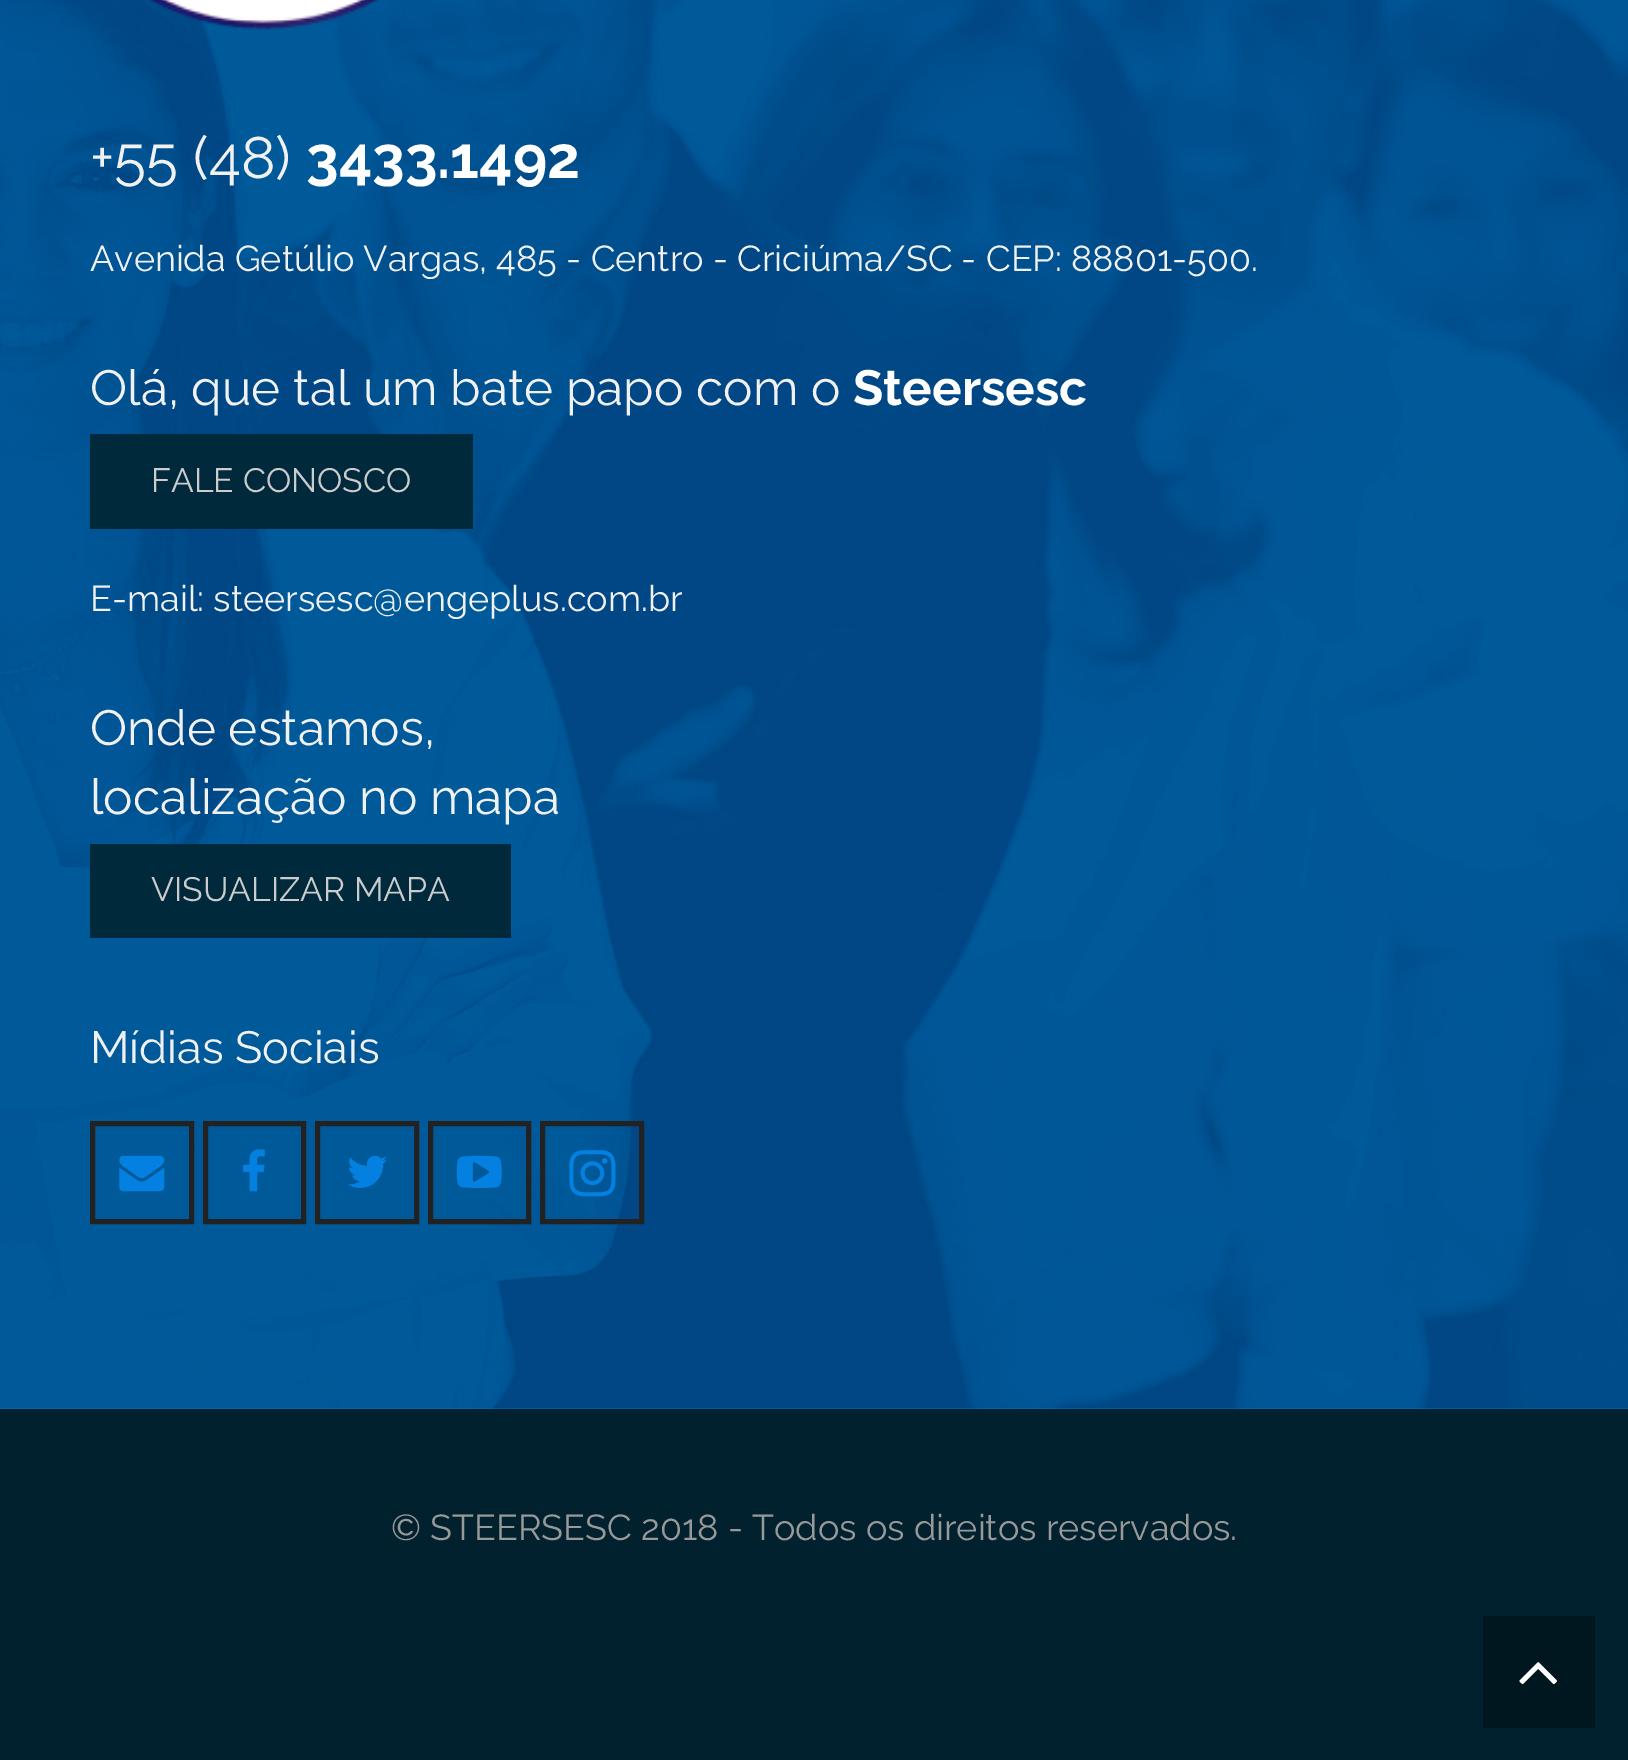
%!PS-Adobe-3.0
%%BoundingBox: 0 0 1628 1760
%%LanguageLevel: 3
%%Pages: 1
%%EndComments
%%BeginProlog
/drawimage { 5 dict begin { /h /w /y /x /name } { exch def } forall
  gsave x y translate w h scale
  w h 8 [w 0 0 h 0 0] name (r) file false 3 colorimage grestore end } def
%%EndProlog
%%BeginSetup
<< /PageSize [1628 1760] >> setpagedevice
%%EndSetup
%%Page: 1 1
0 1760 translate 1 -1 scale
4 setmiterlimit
1 setgray
0 0 1628 1760 rectfill
(images/1.raw) 0 0 1628 1409 drawimage
(images/2.raw) 149 0 230 30 drawimage
0 0.165 0.235 setrgbcolor
90 434 383 95 rectfill
90 844 421 94 rectfill
0.133 setgray
5 setlinewidth
92.5 1123.5 99 98 rectstroke
(images/3.raw) 119 1155 46 37 drawimage
205.5 1123.5 98 98 rectstroke
(images/4.raw) 243 1149 22 43 drawimage
317.5 1123.5 99 98 rectstroke
(images/5.raw) 348 1155 39 33 drawimage
430.5 1123.5 98 98 rectstroke
(images/6.raw) 456 1155 46 33 drawimage
542.5 1123.5 99 98 rectstroke
(images/7.raw) 569 1150 47 47 drawimage
0.004 0.129 0.18 setrgbcolor
0 1409 1628 351 rectfill
0.004 0.09 0.125 setrgbcolor
1483 1616 112 112 rectfill
(images/8.raw) 1519 1662 38 23 drawimage
/Raleway-Regular [58.5 0 0 -58.5 0 0] selectfont
0.945 setgray
90 178 moveto (+55 \(48\)) show
/Raleway-Bold [58.5 0 0 -58.5 0 0] selectfont
1 setgray
306 178 moveto (3433.1492) show
/Raleway-Regular [36 0 0 -36 0 0] selectfont
0.945 setgray
90 271 moveto (Avenida Getúlio Vargas, 485 - Centro - Criciúma/SC - CEP: 88801-500.) show
/Raleway-Regular [49.5 0 0 -49.5 0 0] selectfont
90 405 moveto (Olá, que tal um bate papo com o) show
/Raleway-Bold [49.5 0 0 -49.5 0 0] selectfont
1 setgray
853 405 moveto (Steersesc) show
/Raleway-Regular [33.75 0 0 -33.75 0 0] selectfont
0.8 setgray
151 492 moveto (FALE CONOSCO) show
/Raleway-Regular [36 0 0 -36 0 0] selectfont
0.945 setgray
90 611 moveto (E-mail: steersesc@engeplus.com.br) show
/Raleway-Regular [49.5 0 0 -49.5 0 0] selectfont
90 745 moveto (Onde estamos,) show
90 814 moveto (localização no mapa) show
/Raleway-Regular [33.75 0 0 -33.75 0 0] selectfont
0.8 setgray
151 901 moveto (VISUALIZAR MAPA) show
/Raleway-Regular [45 0 0 -45 0 0] selectfont
0.945 setgray
90 1063 moveto (Mídias Sociais) show
/Raleway-Regular [36 0 0 -36 0 0] selectfont
0.6 setgray
391 1540 moveto (© STEERSESC 2018 - Todos os direitos reservados.) show
showpage
%%EOF
